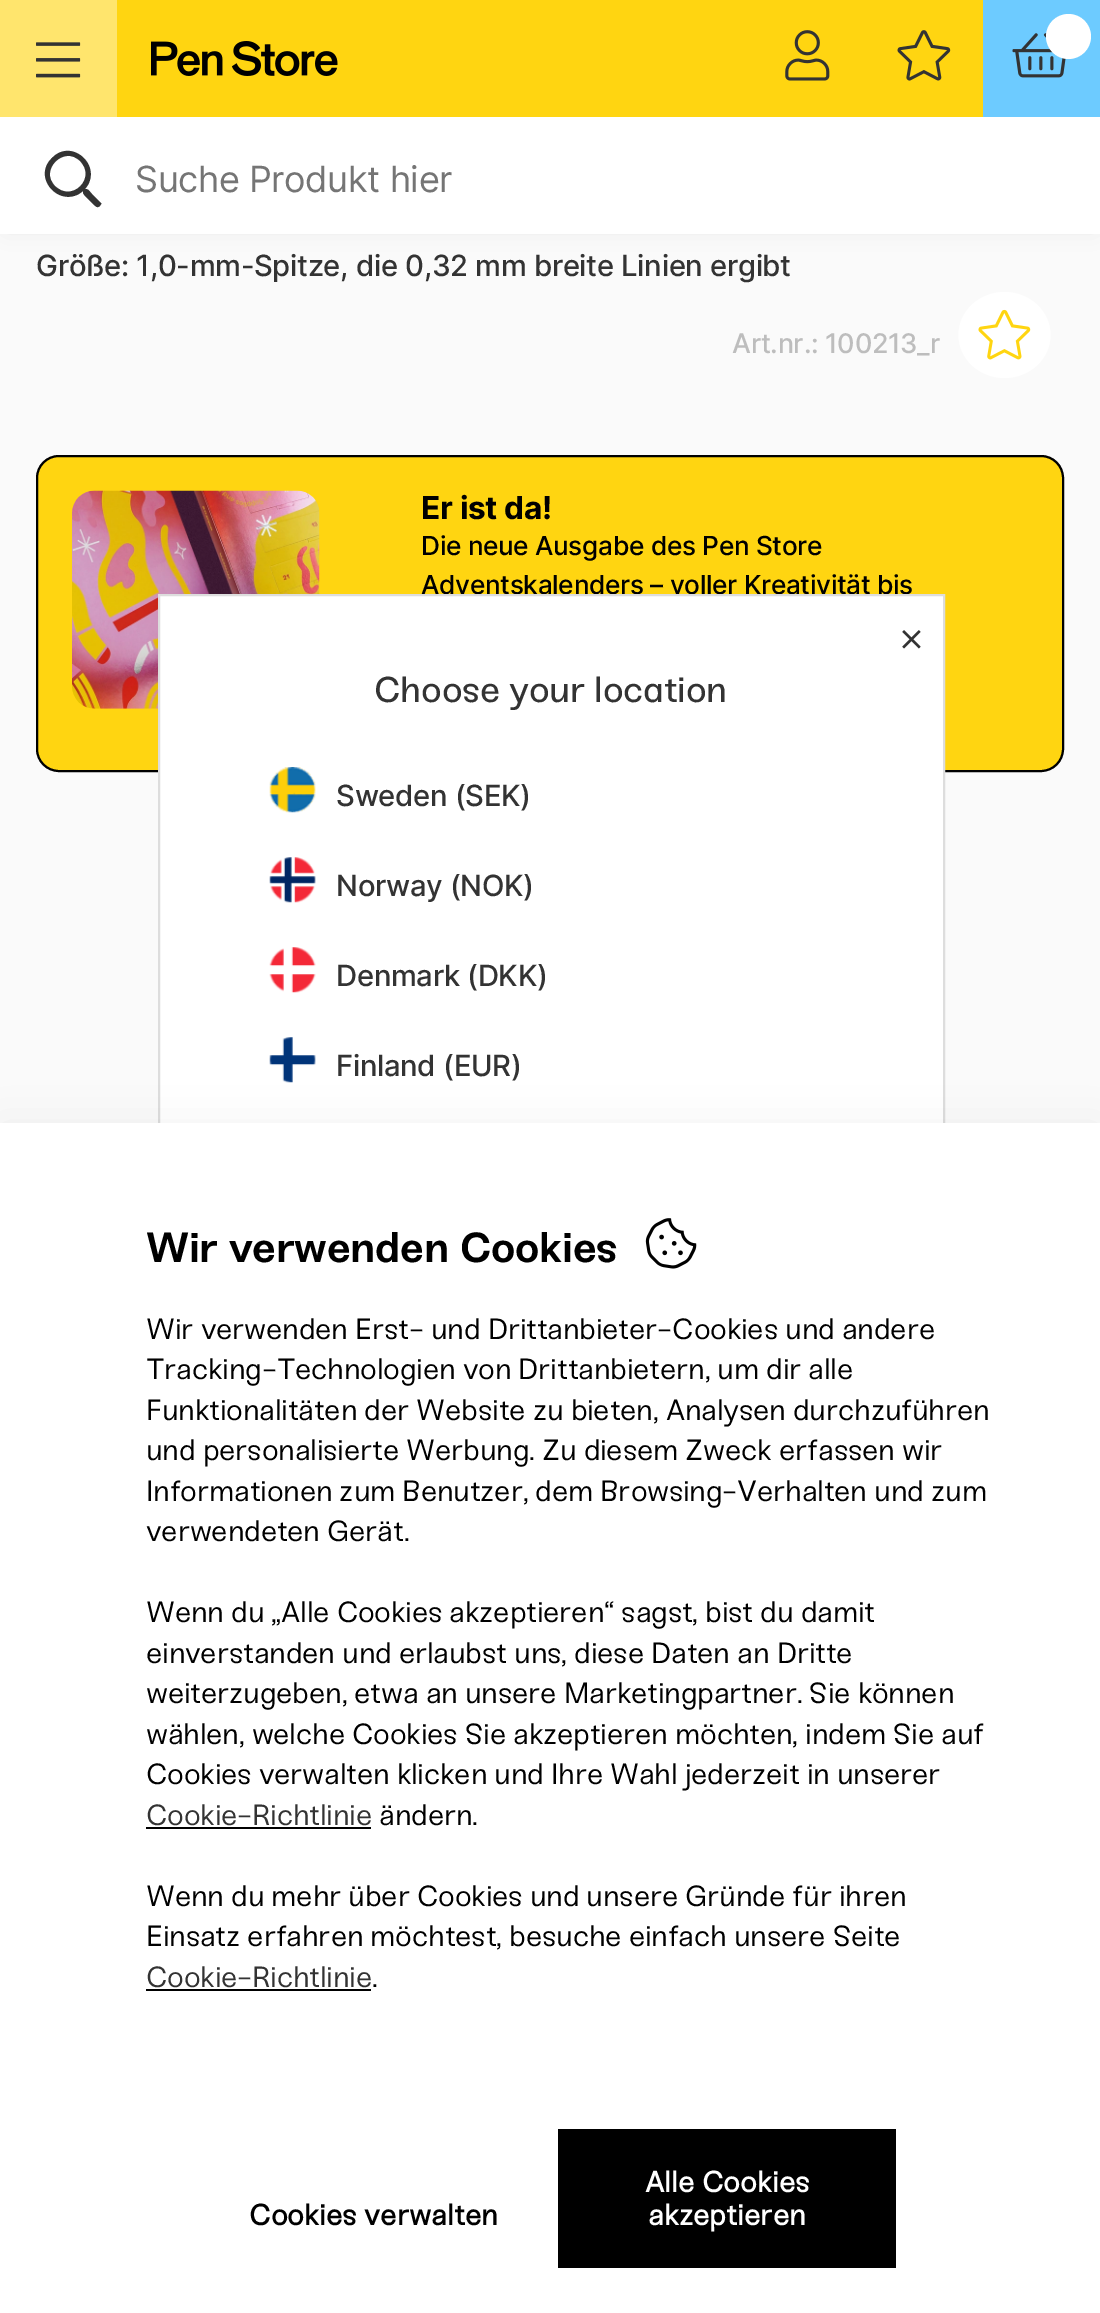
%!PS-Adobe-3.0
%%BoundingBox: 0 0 1100 2313
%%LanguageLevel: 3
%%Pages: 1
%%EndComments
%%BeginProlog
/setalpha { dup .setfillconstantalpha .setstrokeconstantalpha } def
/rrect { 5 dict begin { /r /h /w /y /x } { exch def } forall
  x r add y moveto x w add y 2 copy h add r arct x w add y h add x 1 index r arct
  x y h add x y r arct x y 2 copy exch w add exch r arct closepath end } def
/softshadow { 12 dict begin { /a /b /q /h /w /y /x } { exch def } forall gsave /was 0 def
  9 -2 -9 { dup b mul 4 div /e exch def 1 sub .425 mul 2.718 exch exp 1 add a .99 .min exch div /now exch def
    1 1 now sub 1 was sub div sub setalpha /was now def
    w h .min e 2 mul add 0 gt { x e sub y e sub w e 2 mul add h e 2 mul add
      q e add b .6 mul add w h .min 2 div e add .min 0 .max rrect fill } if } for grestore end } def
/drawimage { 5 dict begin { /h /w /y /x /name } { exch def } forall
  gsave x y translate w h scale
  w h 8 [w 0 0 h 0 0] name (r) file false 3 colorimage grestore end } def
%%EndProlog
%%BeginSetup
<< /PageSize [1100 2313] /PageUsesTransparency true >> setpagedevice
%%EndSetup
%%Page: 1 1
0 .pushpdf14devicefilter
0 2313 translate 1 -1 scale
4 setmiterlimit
0.98 setgray
0 0 1100 2313 rectfill
0 setgray
7 124 1087 103 0 11 0.1 softshadow
1 0.835 0.067 setrgbcolor
117 0 866 117 rectfill
1 0.898 0.427 setrgbcolor
0 0 117 117 rectfill
(images/1.raw) 36 42 45 36 drawimage
(images/2.raw) 151 41 187 35 drawimage
(images/3.raw) 785 30 45 51 drawimage
(images/4.raw) 897 30 54 51 drawimage
0.427 0.796 1 setrgbcolor
983 0 117 117 rectfill
(images/5.raw) 1012 33 54 45 drawimage
1 setgray
newpath 1068.5 36.5 22.5 0 360 arc closepath fill
0 117 1100 117 rectfill
0.2 setgray
newpath 101 203 moveto 102 204 100 205 100 206 curveto 97 208 97 207 94 205 curveto 85 196 lineto 83 193 83 194 83 191 curveto 61 210 31 178 52 158 curveto 72 137 104 167 85 189 curveto 89 189 89 191 92 194 curveto closepath 55 186 moveto 72 203 97 178 80 161 curveto 64 145 39 170 55 186 curveto closepath fill
1 setgray
newpath 1004.5 292 moveto 1030 292 1050.5 311.5 1050.5 335 curveto 1050.5 358.5 1030 378 1004.5 378 curveto 979 378 958.5 358.5 958.5 335 curveto 958.5 311.5 979 292 1004.5 292 curveto closepath fill
(images/6.raw) 978 309 53 51 drawimage
1 0.835 0.067 setrgbcolor
37 456 1026 315 22 rrect gsave fill grestore
0 setgray
2 setlinewidth
stroke
(images/7.raw) 72 490 248 219 drawimage
1 setgray
160 596 783 527 rectfill
/Inter-Regular [36 0 0 -36 0 0] selectfont
0.459 setgray
135 192 moveto -0.4 0 (Suche Produkt hier) ashow
/Inter-Medium [29.25 0 0 -29.25 0 0] selectfont
0.2 setgray
36 276 moveto -0.32 0 (Größe: 1,0-mm-Spitze, die 0,32 mm breite Linien ergibt) ashow
/Inter-Medium [27 0 0 -27 0 0] selectfont
0.741 setgray
732 353 moveto -0.32 0 (Art.nr.: 100213_r) ashow
/Inter-Bold [31.5 0 0 -31.5 0 0] selectfont
0 setgray
421 519 moveto -0.32 0 (Er ist da!) ashow
/Inter-Medium [26.25 0 0 -26.25 0 0] selectfont
421 555 moveto -0.32 0 (Die neue Ausgabe des Pen Store) ashow
421 594 moveto -0.32 0 (Adventskalenders – voller Kreativität bis) ashow
0.867 setgray
159 595 785 1123 rectstroke
(images/8.raw) 902 630 19 19 drawimage
/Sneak-Medium [36 0 0 -36 0 0] selectfont
0.2 setgray
374 702 moveto -0.32 0 (Choose your location) ashow
(images/9.raw) 269 767 47 46 drawimage
/Inter-Medium [29.25 0 0 -29.25 0 0] selectfont
336 806 moveto -0.32 0 (Sweden \(SEK\)) ashow
(images/10.raw) 269 857 47 46 drawimage
336 896 moveto -0.32 0 (Norway \(NOK\)) ashow
(images/11.raw) 269 947 47 46 drawimage
336 986 moveto -0.32 0 (Denmark \(DKK\)) ashow
(images/12.raw) 269 1037 47 46 drawimage
336 1076 moveto -0.32 0 (Finland \(EUR\)) ashow
0 setgray
0 1125 1100 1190 0 22.5 0.05 softshadow
1 setgray
0 1123 1100 1190 rectfill
/Sneak-Bold [42.1 0 0 -42.1 0 0] selectfont
0 setgray
146 1262 moveto -0.32 0 (Wir verwenden Cookies) ashow
(images/13.raw) 645 1218 52 51 drawimage
/Sneak-Regular [29.25 0 0 -29.25 0 0] selectfont
146 1339 moveto -0.32 0 (Wir verwenden Erst- und Drittanbieter-Cookies und andere) ashow
146 1379 moveto -0.32 0 (Tracking-Technologien von Drittanbietern, um dir alle) ashow
146 1420 moveto -0.32 0 (Funktionalitäten der Website zu bieten, Analysen durchzuführen) ashow
146 1460 moveto -0.32 0 (und personalisierte Werbung. Zu diesem Zweck erfassen wir) ashow
146 1501 moveto -0.32 0 (Informationen zum Benutzer, dem Browsing-Verhalten und zum) ashow
146 1541 moveto -0.32 0 (verwendeten Gerät.) ashow
146 1622 moveto -0.32 0 (Wenn du „Alle Cookies akzeptieren“ sagst, bist du damit) ashow
146 1663 moveto -0.32 0 (einverstanden und erlaubst uns, diese Daten an Dritte) ashow
146 1703 moveto -0.32 0 (weiterzugeben, etwa an unsere Marketingpartner. Sie können) ashow
146 1744 moveto -0.32 0 (wählen, welche Cookies Sie akzeptieren möchten, indem Sie auf) ashow
146 1784 moveto -0.32 0 (Cookies verwalten klicken und Ihre Wahl jederzeit in unserer) ashow
0.2 setgray
146 1825 moveto -0.32 0 (Cookie-Richtlinie) ashow
0 setgray
146 1827 225 2 rectfill
379 1825 moveto -0.32 0 (ändern.) ashow
146 1906 moveto -0.32 0 (Wenn du mehr über Cookies und unsere Gründe für ihren) ashow
146 1946 moveto -0.32 0 (Einsatz erfahren möchtest, besuche einfach unsere Seite) ashow
0.2 setgray
146 1987 moveto -0.32 0 (Cookie-Richtlinie) ashow
0 setgray
146 1989 225 2 rectfill
372 1987 moveto -0.32 0 (.) ashow
/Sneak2-Bold [29.25 0 0 -29.25 0 0] selectfont
249 2225 moveto (Cookies verwalten) show
558 2129 338 139 rectfill
1 setgray
645 2192 moveto (Alle Cookies) show
648 2225 moveto (akzeptieren) show
.poppdf14devicefilter showpage
%%EOF
